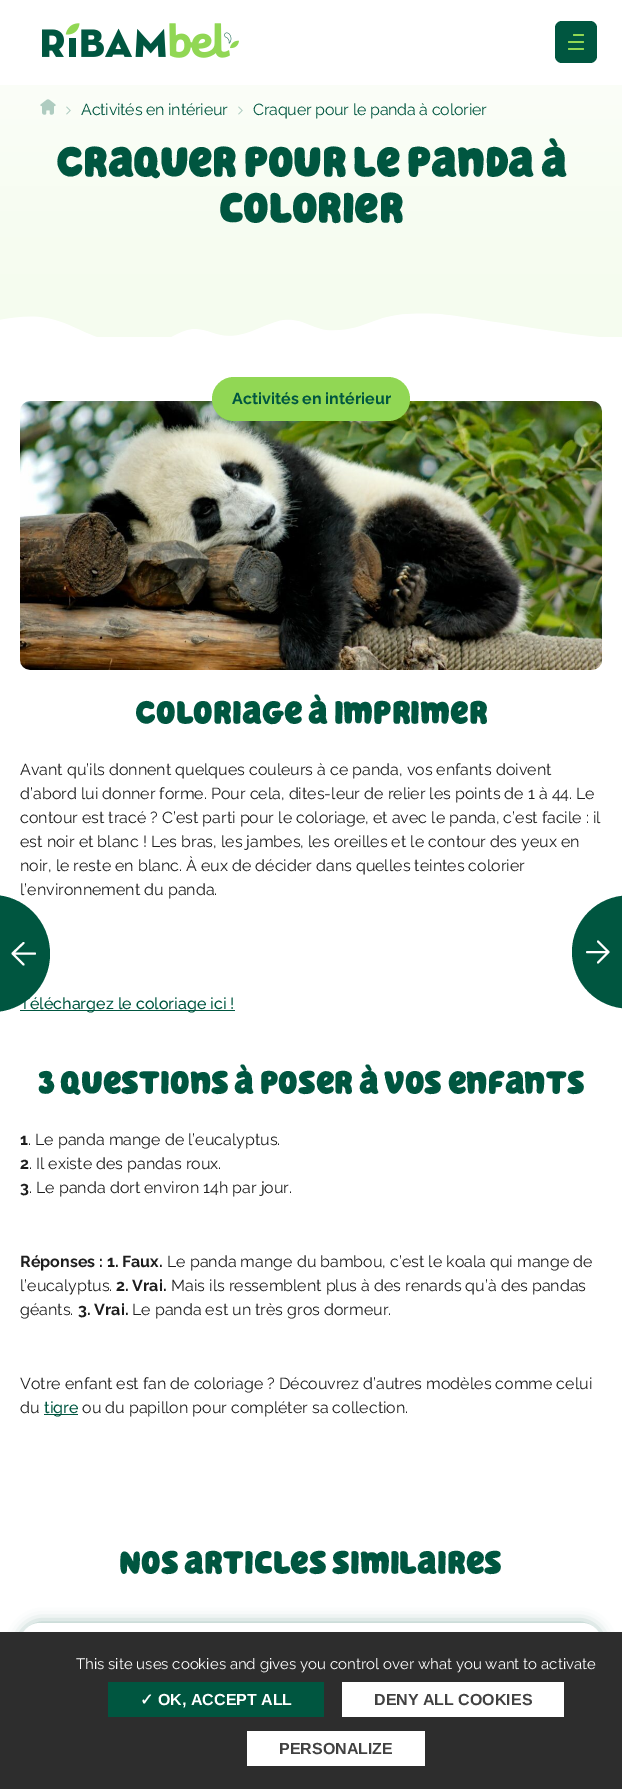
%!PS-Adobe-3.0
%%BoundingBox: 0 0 622 1789
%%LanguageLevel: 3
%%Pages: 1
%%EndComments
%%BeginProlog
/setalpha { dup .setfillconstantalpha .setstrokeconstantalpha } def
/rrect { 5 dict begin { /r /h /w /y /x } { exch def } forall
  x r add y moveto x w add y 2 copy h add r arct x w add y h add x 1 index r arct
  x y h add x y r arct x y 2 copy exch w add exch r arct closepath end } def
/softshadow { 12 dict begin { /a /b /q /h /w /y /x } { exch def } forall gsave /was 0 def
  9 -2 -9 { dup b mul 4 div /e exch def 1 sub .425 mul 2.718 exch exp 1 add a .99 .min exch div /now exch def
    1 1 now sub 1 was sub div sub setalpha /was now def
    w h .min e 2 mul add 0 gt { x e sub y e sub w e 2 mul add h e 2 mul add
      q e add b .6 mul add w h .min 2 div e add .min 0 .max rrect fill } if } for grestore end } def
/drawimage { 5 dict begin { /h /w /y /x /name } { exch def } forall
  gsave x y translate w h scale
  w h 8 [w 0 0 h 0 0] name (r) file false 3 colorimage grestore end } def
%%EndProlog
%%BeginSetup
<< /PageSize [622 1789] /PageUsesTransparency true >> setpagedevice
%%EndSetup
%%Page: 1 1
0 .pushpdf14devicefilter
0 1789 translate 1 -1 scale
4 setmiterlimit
1 setgray
0 0 622 1789 rectfill
(images/1.raw) 42 23 197 35 drawimage
0 0.337 0.251 setrgbcolor
555 21 42 42 7 rrect fill
0.569 0.843 0.329 setrgbcolor
573 34 11 2 1 rrect fill
568 41 16 2 1 rrect fill
568 48 16 2 1 rrect fill
gsave newpath 0 85 moveto 622 85 lineto 622 287 lineto 0 287 lineto closepath clip newpath
<< /ShadingType 2 /ColorSpace /DeviceRGB /Coords [311 0 311 337] /Extend [true true] /Function << /FunctionType 3 /Domain [0 1] /Functions [<< /FunctionType 2 /Domain [0 1] /C0 [0.992 1 0.988] /C1 [0.961 0.988 0.937] /N 1 >> << /FunctionType 2 /Domain [0 1] /C0 [0.961 0.988 0.937] /C1 [0.961 0.988 0.937] /N 1 >>] /Bounds [0.85] /Encode [0 1 0 1] >> >> shfill grestore
(images/2.raw) 40 99 16 16 drawimage
(images/3.raw) 66 106 5 9 drawimage
(images/3.raw) 238 106 5 9 drawimage
(images/4.raw) 0 287 622 50 drawimage
(images/5.raw) 20 401 582 269 drawimage
212 377 198 44 22 rrect fill
0 0.337 0.251 setrgbcolor
20 1010 215 1 rectfill
44 1414 34 1 rectfill
20 1623 582 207 20 7 0.4 softshadow
1 setgray
20 1623 582 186 20 rrect fill
0 0.337 0.251 setrgbcolor
newpath 628.5 952 56.5 0 360 arc closepath fill
1 setgray
1.9 setlinewidth
1 setlinecap
1 setlinejoin
newpath 598 941.5 moveto 608.5 952 lineto 598 962.5 lineto 607 952 moveto 587 952 lineto stroke
0.176 setgray
0 1632 622 157 rectfill
0 0.337 0.251 setrgbcolor
108 1682 216 35 rectfill
1 setgray
342 1682 222 35 rectfill
247 1731 178 35 rectfill
/Raleway-Regular [16 0 0 -16 0 0] selectfont
0 0.337 0.251 setrgbcolor
81 115 moveto -0.2 0 (Activités en intérieur) ashow
253 115 moveto -0.2 0 (Craquer pour le panda à colorier) ashow
/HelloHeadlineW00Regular-Bold [42 0 0 -42 0 0] selectfont
56 177 moveto 1 0 (Craquer pour le panda à) ashow
219 223 moveto 1 0 (colorier) ashow
/Raleway-Bold [16 0 0 -16 0 0] selectfont
232 404 moveto (Activités en intérieur) show
/HelloHeadlineW00Regular-Bold [32 0 0 -32 0 0] selectfont
135 724 moveto 1 0 (Coloriage à imprimer) ashow
/Raleway-Regular [16 0 0 -16 0 0] selectfont
0.118 setgray
20 775 moveto (Avant qu’ils donnent quelques couleurs à ce panda, vos enfants doivent) show
20 799 moveto (d’abord lui donner forme. Pour cela, dites-leur de relier les points de 1 à 44. Le) show
20 823 moveto (contour est tracé ? C’est parti pour le coloriage, et avec le panda, c’est facile : il) show
20 847 moveto (est noir et blanc ! Les bras, les jambes, les oreilles et le contour des yeux en) show
20 871 moveto (noir, le reste en blanc. À eux de décider dans quelles teintes colorier) show
20 895 moveto (l’environnement du panda.) show
/Raleway-Medium [16 0 0 -16 0 0] selectfont
0 0.337 0.251 setrgbcolor
20 1009 moveto (Téléchargez le coloriage ici !) show
/HelloHeadlineW00Regular-Bold [32 0 0 -32 0 0] selectfont
38 1094 moveto 1 0 (3 questions à poser à vos enfants) ashow
/Raleway-Bold [16 0 0 -16 0 0] selectfont
0.118 setgray
20 1145 moveto (1) show
/Raleway-Regular [16 0 0 -16 0 0] selectfont
28 1145 moveto (. Le panda mange de l’eucalyptus.) show
/Raleway-Bold [16 0 0 -16 0 0] selectfont
20 1169 moveto (2) show
/Raleway-Regular [16 0 0 -16 0 0] selectfont
29 1169 moveto (. Il existe des pandas roux.) show
/Raleway-Bold [16 0 0 -16 0 0] selectfont
20 1193 moveto (3) show
/Raleway-Regular [16 0 0 -16 0 0] selectfont
29 1193 moveto (. Le panda dort environ 14h par jour.) show
/Raleway-Bold [16 0 0 -16 0 0] selectfont
20 1267 moveto (Réponses : 1. Faux.) show
/Raleway-Regular [16 0 0 -16 0 0] selectfont
167 1267 moveto (Le panda mange du bambou, c’est le koala qui mange de) show
20 1291 moveto (l’eucalyptus.) show
/Raleway-Bold [16 0 0 -16 0 0] selectfont
116 1291 moveto (2. Vrai.) show
/Raleway-Regular [16 0 0 -16 0 0] selectfont
171 1291 moveto (Mais ils ressemblent plus à des renards qu’à des pandas) show
20 1315 moveto (géants.) show
/Raleway-Bold [16 0 0 -16 0 0] selectfont
78 1315 moveto (3. Vrai.) show
/Raleway-Regular [16 0 0 -16 0 0] selectfont
132 1315 moveto (Le panda est un très gros dormeur.) show
20 1389 moveto (Votre enfant est fan de coloriage ? Découvrez d’autres modèles comme celui) show
20 1413 moveto (du) show
/Raleway-Medium [16 0 0 -16 0 0] selectfont
0 0.337 0.251 setrgbcolor
44 1413 moveto (tigre) show
/Raleway-Regular [16 0 0 -16 0 0] selectfont
0.118 setgray
82 1413 moveto (ou du papillon pour compléter sa collection.) show
/HelloHeadlineW00Regular-Bold [32 0 0 -32 0 0] selectfont
0 0.337 0.251 setrgbcolor
119 1574 moveto 1 0 (Nos articles similaires) ashow
newpath -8 1012 moveto -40 1012 -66 986 -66 954 curveto -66 921 -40 895 -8 895 curveto 24 895 50 921 50 954 curveto 50 986 24 1012 -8 1012 curveto closepath fill
1 setgray
2 setlinewidth
newpath 23.5 964.5 moveto 12.5 953.5 lineto 23.5 943 lineto 14 953.5 moveto 35 953.5 lineto stroke
/Raleway-Regular [15 0 0 -15 0 0] selectfont
76 1669 moveto (This site uses cookies and gives you control over what you want to activate) show
/DejaVuSans-Bold [16 0 0 -16 0 0] selectfont
140 1705 moveto (✓) show
/LiberationSans-Bold [16 0 0 -16 0 0] selectfont
158 1705 moveto (OK, ACCEPT ALL) show
0.255 setgray
374 1705 moveto (DENY ALL COOKIES) show
279 1754 moveto (PERSONALIZE) show
.poppdf14devicefilter showpage
%%EOF
